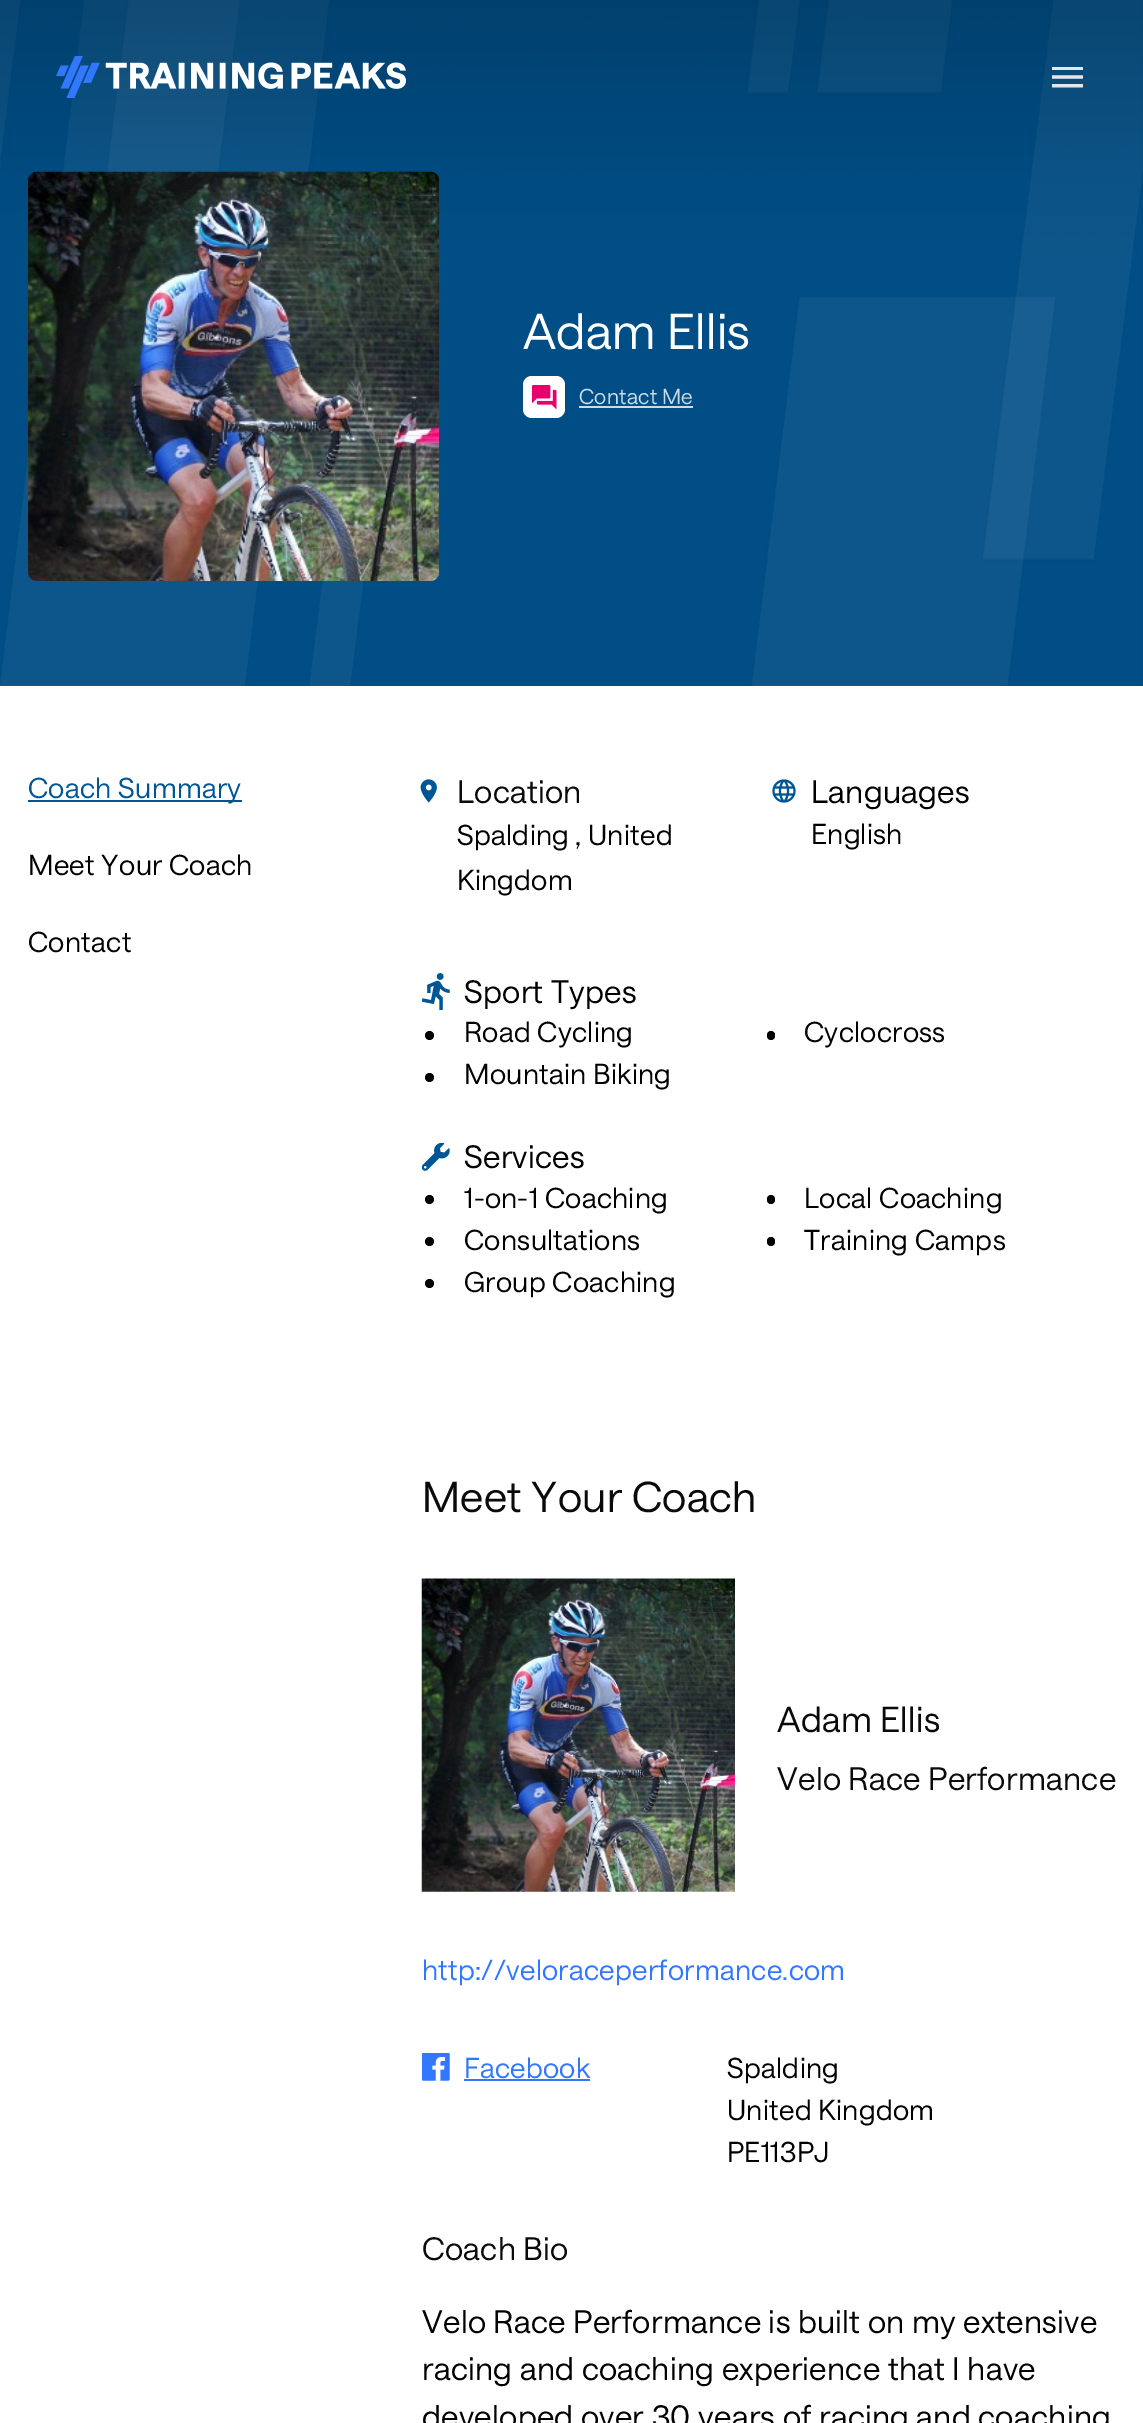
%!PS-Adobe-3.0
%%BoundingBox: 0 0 1143 2423
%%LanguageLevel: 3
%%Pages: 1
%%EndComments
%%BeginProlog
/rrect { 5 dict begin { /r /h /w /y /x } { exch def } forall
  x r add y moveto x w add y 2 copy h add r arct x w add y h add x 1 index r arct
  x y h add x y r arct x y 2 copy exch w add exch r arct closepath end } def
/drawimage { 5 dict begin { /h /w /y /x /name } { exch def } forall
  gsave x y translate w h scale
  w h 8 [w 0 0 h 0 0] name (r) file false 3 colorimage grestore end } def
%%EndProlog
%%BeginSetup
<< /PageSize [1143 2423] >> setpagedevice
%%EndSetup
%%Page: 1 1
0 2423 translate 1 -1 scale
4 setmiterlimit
1 setgray
0 0 1143 2423 rectfill
(images/3.raw) 0 0 1143 686 drawimage
(images/1.raw) 56 56 350 42 drawimage
(images/2.raw) 1052 67 31 21 drawimage
(images/4.raw) 28 171 412 410 drawimage
523 376 42 42 9 rrect fill
(images/5.raw) 532 385 25 25 drawimage
0.8 0.863 0.906 setrgbcolor
579 406 114 2 rectfill
0 0.337 0.584 setrgbcolor
28 800 214 2 rectfill
(images/6.raw) 420 779 17 24 drawimage
(images/7.raw) 772 779 24 24 drawimage
(images/8.raw) 422 973 28 37 drawimage
0 setgray
newpath 429.5 1035.5 4.5 0 360 arc closepath fill
767 1031 8 9 4 rrect fill
newpath 429.5 1077.5 4.5 0 360 arc closepath fill
(images/9.raw) 422 1143 28 28 drawimage
newpath 429.5 1199.5 4.5 0 360 arc closepath fill
767 1195 8 9 4 rrect fill
newpath 429.5 1241.5 4.5 0 360 arc closepath fill
767 1237 8 9 4 rrect fill
newpath 429.5 1283.5 4.5 0 360 arc closepath fill
(images/10.raw) 421 1578 314 314 drawimage
(images/11.raw) 422 2053 28 28 drawimage
0.192 0.467 1 setrgbcolor
464 2079 126 2 rectfill
/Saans-Regular [49 0 0 -49 0 0] selectfont
1 setgray
523 349 moveto 0.35 0 (Adam Ellis) ashow
/Saans-Regular [21 0 0 -21 0 0] selectfont
0.8 0.863 0.906 setrgbcolor
579 404 moveto 0.35 0 (Contact Me) ashow
/Saans-Regular [28 0 0 -28 0 0] selectfont
0 0.337 0.584 setrgbcolor
28 798 moveto 0.35 0 (Coach Summary) ashow
0 setgray
28 875 moveto 0.35 0 (Meet Your Coach) ashow
28 952 moveto 0.35 0 (Contact) ashow
/Saans-Regular [31.5 0 0 -31.5 0 0] selectfont
0.039 setgray
457 803 moveto 0.35 0 (Location) ashow
/Saans-Regular [28 0 0 -28 0 0] selectfont
0 setgray
457 845 moveto 0.35 0 (Spalding) ashow
575 845 moveto 0.35 0 (, United) ashow
457 890 moveto 0.35 0 (Kingdom) ashow
/Saans-Regular [31.5 0 0 -31.5 0 0] selectfont
811 803 moveto 0.35 0 (Languages) ashow
/Saans-Regular [28 0 0 -28 0 0] selectfont
811 844 moveto 0.35 0 (English) ashow
/Saans-Regular [31.5 0 0 -31.5 0 0] selectfont
464 1003 moveto 0.35 0 (Sport Types) ashow
/Saans-Regular [28 0 0 -28 0 0] selectfont
464 1042 moveto 0.35 0 (Road Cycling) ashow
804 1042 moveto 0.35 0 (Cyclocross) ashow
464 1084 moveto 0.35 0 (Mountain Biking) ashow
/Saans-Regular [31.5 0 0 -31.5 0 0] selectfont
464 1168 moveto 0.35 0 (Services) ashow
/Saans-Regular [28 0 0 -28 0 0] selectfont
464 1208 moveto 0.35 0 (1-on-1 Coaching) ashow
804 1208 moveto 0.35 0 (Local Coaching) ashow
464 1250 moveto 0.35 0 (Consultations) ashow
804 1250 moveto 0.35 0 (Training Camps) ashow
464 1292 moveto 0.35 0 (Group Coaching) ashow
/Saans-Regular [42 0 0 -42 0 0] selectfont
0.039 setgray
422 1512 moveto 0.35 0 (Meet Your Coach) ashow
/Saans-Regular [35 0 0 -35 0 0] selectfont
777 1732 moveto 0.35 0 (Adam Ellis) ashow
/Saans-Regular [31.5 0 0 -31.5 0 0] selectfont
777 1790 moveto 0.35 0 (Velo Race Performance) ashow
/Saans-Regular [28 0 0 -28 0 0] selectfont
0.192 0.467 1 setrgbcolor
422 1980 moveto 0.35 0 (http://veloraceperformance.com) ashow
464 2078 moveto 0.35 0 (Facebook) ashow
0 setgray
727 2078 moveto 0.35 0 (Spalding) ashow
727 2120 moveto 0.35 0 (United Kingdom) ashow
727 2162 moveto 0.35 0 (PE113PJ) ashow
/Saans-Regular [31.5 0 0 -31.5 0 0] selectfont
0.039 setgray
422 2260 moveto 0.35 0 (Coach Bio) ashow
0 setgray
422 2333 moveto 0.35 0 (Velo Race Performance is built on my extensive) ashow
422 2380 moveto 0.35 0 (racing and coaching experience that I have) ashow
422 2428 moveto 0.35 0 (developed over 30 years of racing and coaching) ashow
showpage
%%EOF
